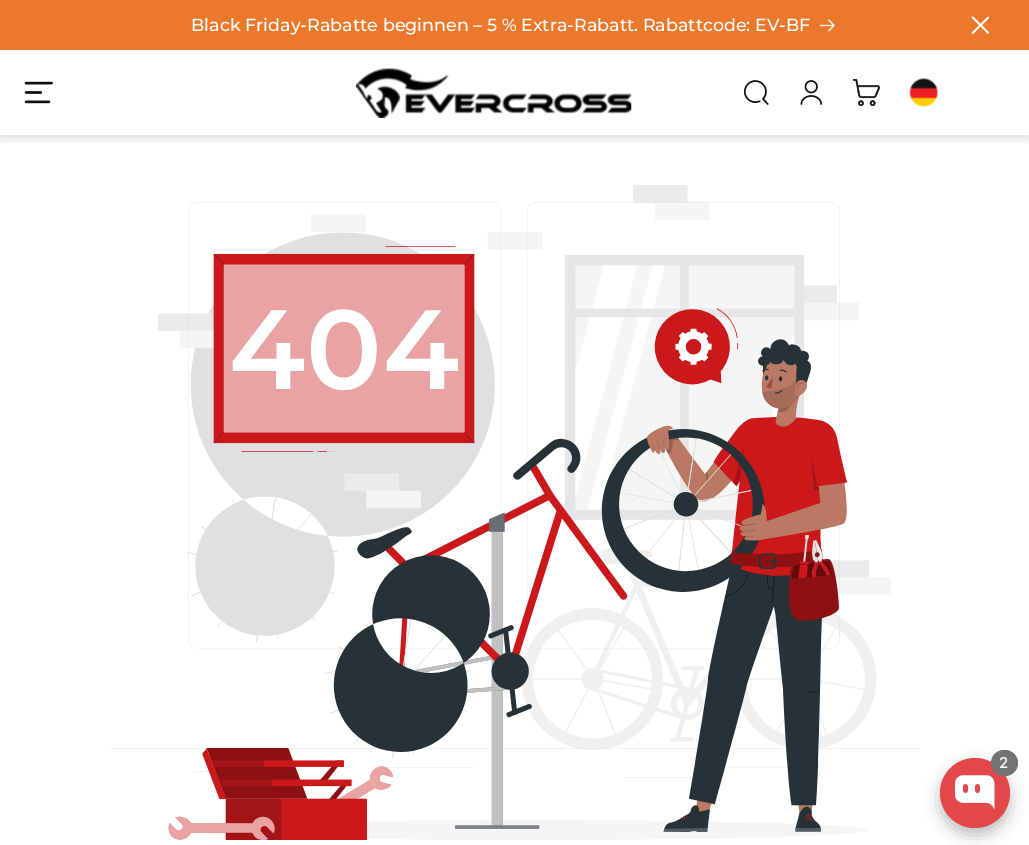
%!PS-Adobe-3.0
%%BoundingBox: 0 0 1029 845
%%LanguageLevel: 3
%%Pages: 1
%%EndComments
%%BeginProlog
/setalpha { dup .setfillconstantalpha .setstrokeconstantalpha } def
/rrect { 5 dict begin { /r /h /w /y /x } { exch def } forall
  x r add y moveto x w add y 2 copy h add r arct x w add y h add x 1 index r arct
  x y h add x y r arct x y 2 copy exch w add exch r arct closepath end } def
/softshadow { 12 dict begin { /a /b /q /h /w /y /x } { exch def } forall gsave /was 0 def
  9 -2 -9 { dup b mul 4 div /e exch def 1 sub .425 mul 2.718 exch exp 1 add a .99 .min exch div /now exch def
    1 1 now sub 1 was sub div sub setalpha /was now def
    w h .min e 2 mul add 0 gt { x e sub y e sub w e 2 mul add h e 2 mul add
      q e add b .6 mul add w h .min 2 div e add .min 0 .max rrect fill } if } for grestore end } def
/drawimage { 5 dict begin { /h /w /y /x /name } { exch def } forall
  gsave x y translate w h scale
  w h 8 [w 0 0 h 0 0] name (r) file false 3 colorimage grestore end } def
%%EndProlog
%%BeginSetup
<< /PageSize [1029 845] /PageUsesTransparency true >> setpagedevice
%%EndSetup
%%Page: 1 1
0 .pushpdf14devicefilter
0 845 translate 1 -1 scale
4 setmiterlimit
1 setgray
0 0 1029 845 rectfill
gsave
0 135 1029 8 rectclip
0 setgray
-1 53 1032 87 0 4 0.1 softshadow
grestore
0.925 0.471 0.173 setrgbcolor
0 0 1029 50 rectfill
(images/1.raw) 820 19 15 13 drawimage
(images/2.raw) 971 16 19 18 drawimage
(images/3.raw) 24 81 29 23 drawimage
(images/4.raw) 356 68 276 50 drawimage
(images/5.raw) 744 80 25 25 drawimage
(images/6.raw) 800 80 22 25 drawimage
(images/7.raw) 853 79 27 27 drawimage
(images/8.raw) 909 78 29 29 drawimage
(images/9.raw) 109 185 812 655 drawimage
0 setgray
940 765 70 70 35 7.5 0.25 softshadow
0.89 0.282 0.282 setrgbcolor
newpath 975 793 35 0 360 arc closepath fill
(images/10.raw) 955 775 40 35 drawimage
0.451 setgray
991 750 27 26 13 rrect fill
/Montserrat-Medium [17.5 0 0 -17.5 0 0] selectfont
1 setgray
191 31 moveto (Black Friday-Rabatte beginnen – 5 % Extra-Rabatt. Rabattcode: EV-BF) show
/Montserrat-SemiBold [112.5 0 0 -112.5 0 0] selectfont
229 389 moveto 1 0 (404) ashow
/Inter-Medium [15 0 0 -15 0 0] selectfont
999 768 moveto 1 0 (2) ashow
.poppdf14devicefilter showpage
%%EOF
